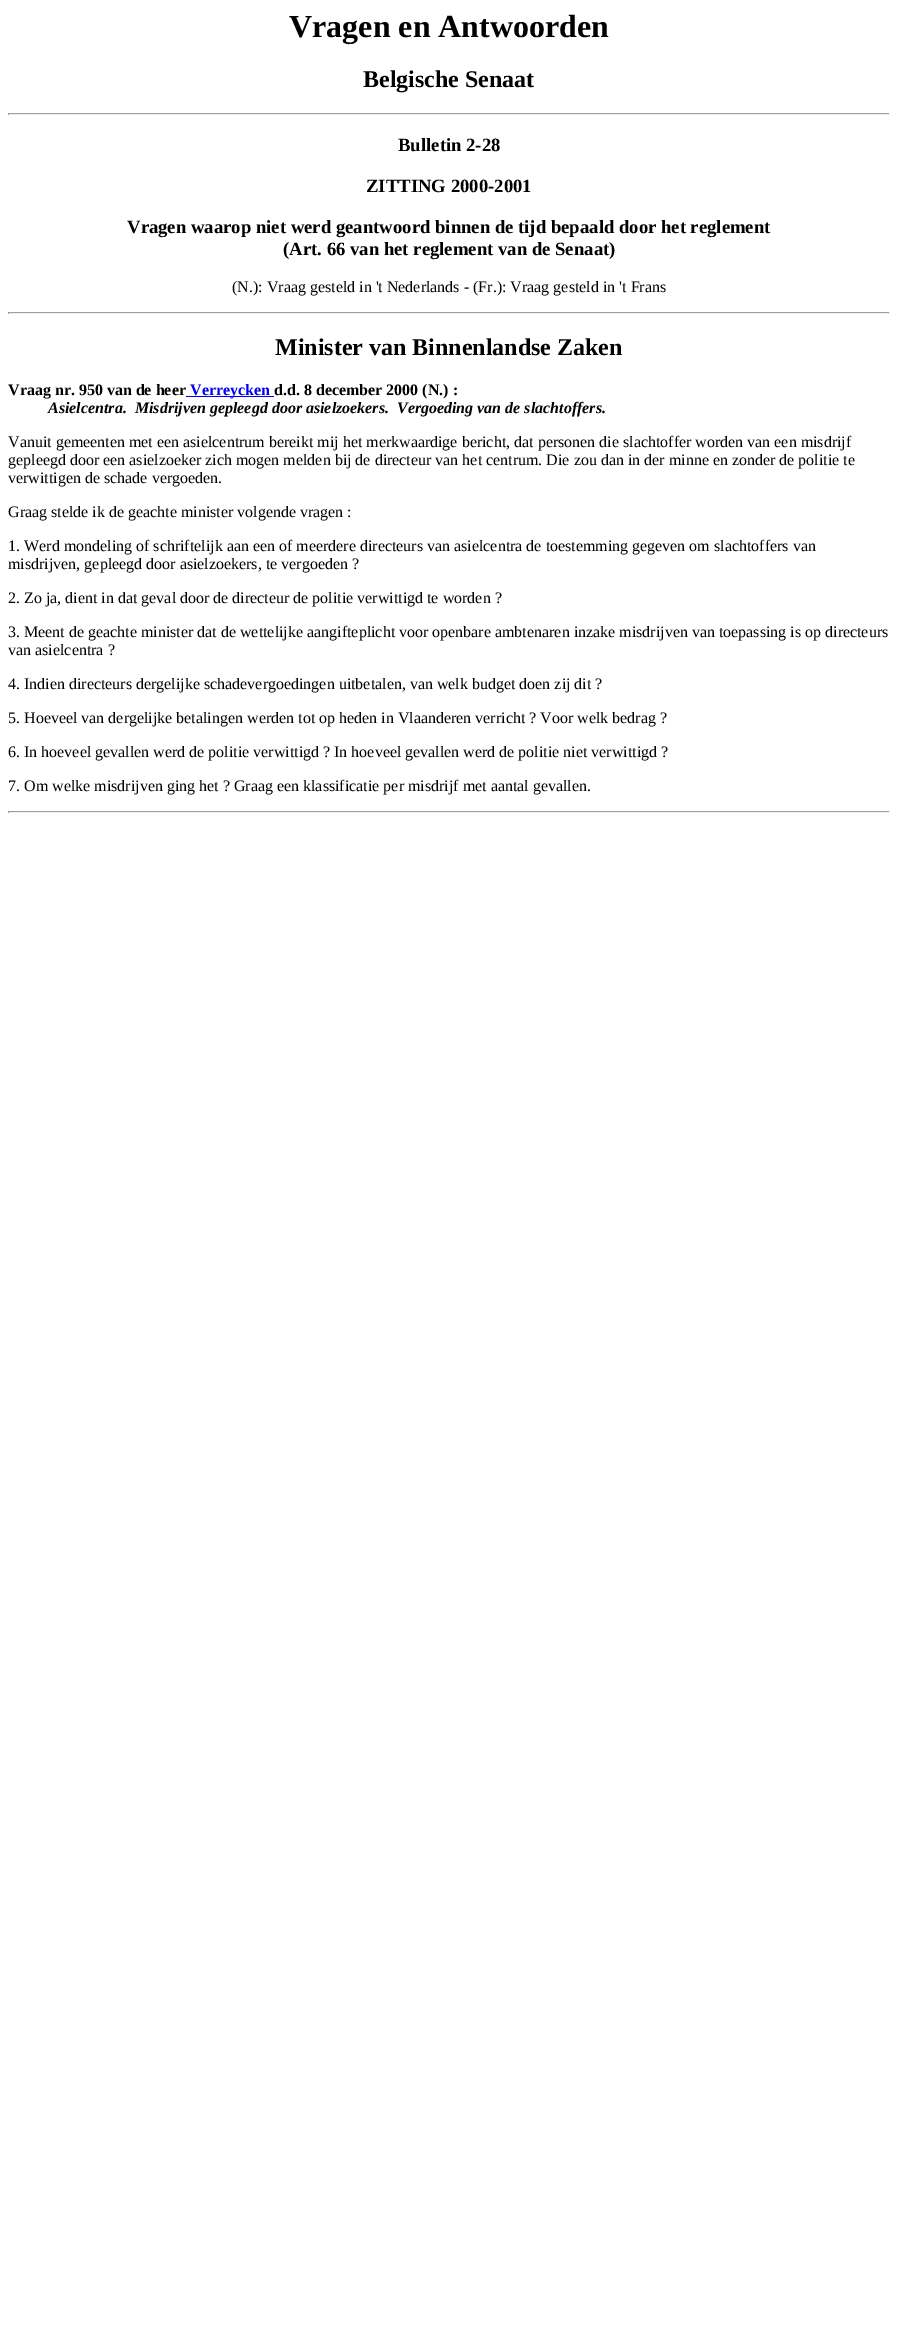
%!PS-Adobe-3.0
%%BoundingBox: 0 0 898 2351
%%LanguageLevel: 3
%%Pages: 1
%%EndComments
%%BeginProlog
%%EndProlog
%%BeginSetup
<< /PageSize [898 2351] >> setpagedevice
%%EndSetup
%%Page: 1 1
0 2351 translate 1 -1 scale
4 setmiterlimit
1 setgray
0 0 898 2351 rectfill
0.624 setgray
8 113 882 1 rectfill
0.933 setgray
889 113 1 2 rectfill
8 114 882 1 rectfill
0.624 setgray
8 113 1 2 rectfill
8 312 882 1 rectfill
0.933 setgray
889 312 1 2 rectfill
8 313 882 1 rectfill
0.624 setgray
8 312 1 2 rectfill
0 0 0.933 setrgbcolor
186 396 88 1 rectfill
0.624 setgray
8 811 882 1 rectfill
0.933 setgray
889 811 1 2 rectfill
8 812 882 1 rectfill
0.624 setgray
8 811 1 2 rectfill
/LiberationSerif-Bold [32 0 0 -32 0 0] selectfont
0 setgray
289 37 moveto (Vragen en Antwoorden) show
/LiberationSerif-Bold [24 0 0 -24 0 0] selectfont
363 87 moveto (Belgische Senaat) show
/LiberationSerif-Bold [18.7 0 0 -18.7 0 0] selectfont
398 151 moveto (Bulletin 2-28) show
366 192 moveto (ZITTING 2000-2001) show
127 233 moveto (Vragen waarop niet werd geantwoord binnen de tijd bepaald door het reglement) show
283 255 moveto (\(Art. 66 van het reglement van de Senaat\)) show
/LiberationSerif-Regular [16 0 0 -16 0 0] selectfont
232 292 moveto (\(N.\): Vraag gesteld in 't Nederlands - \(Fr.\): Vraag gesteld in 't Frans) show
/LiberationSerif-Bold [24 0 0 -24 0 0] selectfont
275 355 moveto (Minister van Binnenlandse Zaken) show
/LiberationSerif-Bold [16 0 0 -16 0 0] selectfont
8 395 moveto (Vraag nr. 950 van de heer) show
0 0 0.933 setrgbcolor
190 395 moveto (Verreycken) show
0 setgray
274 395 moveto (d.d. 8 december 2000 \(N.\) :) show
/LiberationSerif-BoldItalic [16 0 0 -16 0 0] selectfont
48 413 moveto (Asielcentra.  Misdrijven gepleegd door asielzoekers.  Vergoeding van de slachtoffers.) show
/LiberationSerif-Regular [16 0 0 -16 0 0] selectfont
8 447 moveto (Vanuit gemeenten met een asielcentrum bereikt mij het merkwaardige bericht, dat personen die slachtoffer worden van een misdrijf) show
8 465 moveto (gepleegd door een asielzoeker zich mogen melden bij de directeur van het centrum. Die zou dan in der minne en zonder de politie te) show
8 483 moveto (verwittigen de schade vergoeden.) show
8 517 moveto (Graag stelde ik de geachte minister volgende vragen :) show
8 551 moveto (1. Werd mondeling of schriftelijk aan een of meerdere directeurs van asielcentra de toestemming gegeven om slachtoffers van) show
8 569 moveto (misdrijven, gepleegd door asielzoekers, te vergoeden ?) show
8 603 moveto (2. Zo ja, dient in dat geval door de directeur de politie verwittigd te worden ?) show
8 637 moveto (3. Meent de geachte minister dat de wettelijke aangifteplicht voor openbare ambtenaren inzake misdrijven van toepassing is op directeurs) show
8 655 moveto (van asielcentra ?) show
8 689 moveto (4. Indien directeurs dergelijke schadevergoedingen uitbetalen, van welk budget doen zij dit ?) show
8 723 moveto (5. Hoeveel van dergelijke betalingen werden tot op heden in Vlaanderen verricht ? Voor welk bedrag ?) show
8 757 moveto (6. In hoeveel gevallen werd de politie verwittigd ? In hoeveel gevallen werd de politie niet verwittigd ?) show
8 791 moveto (7. Om welke misdrijven ging het ? Graag een klassificatie per misdrijf met aantal gevallen.) show
showpage
%%EOF
